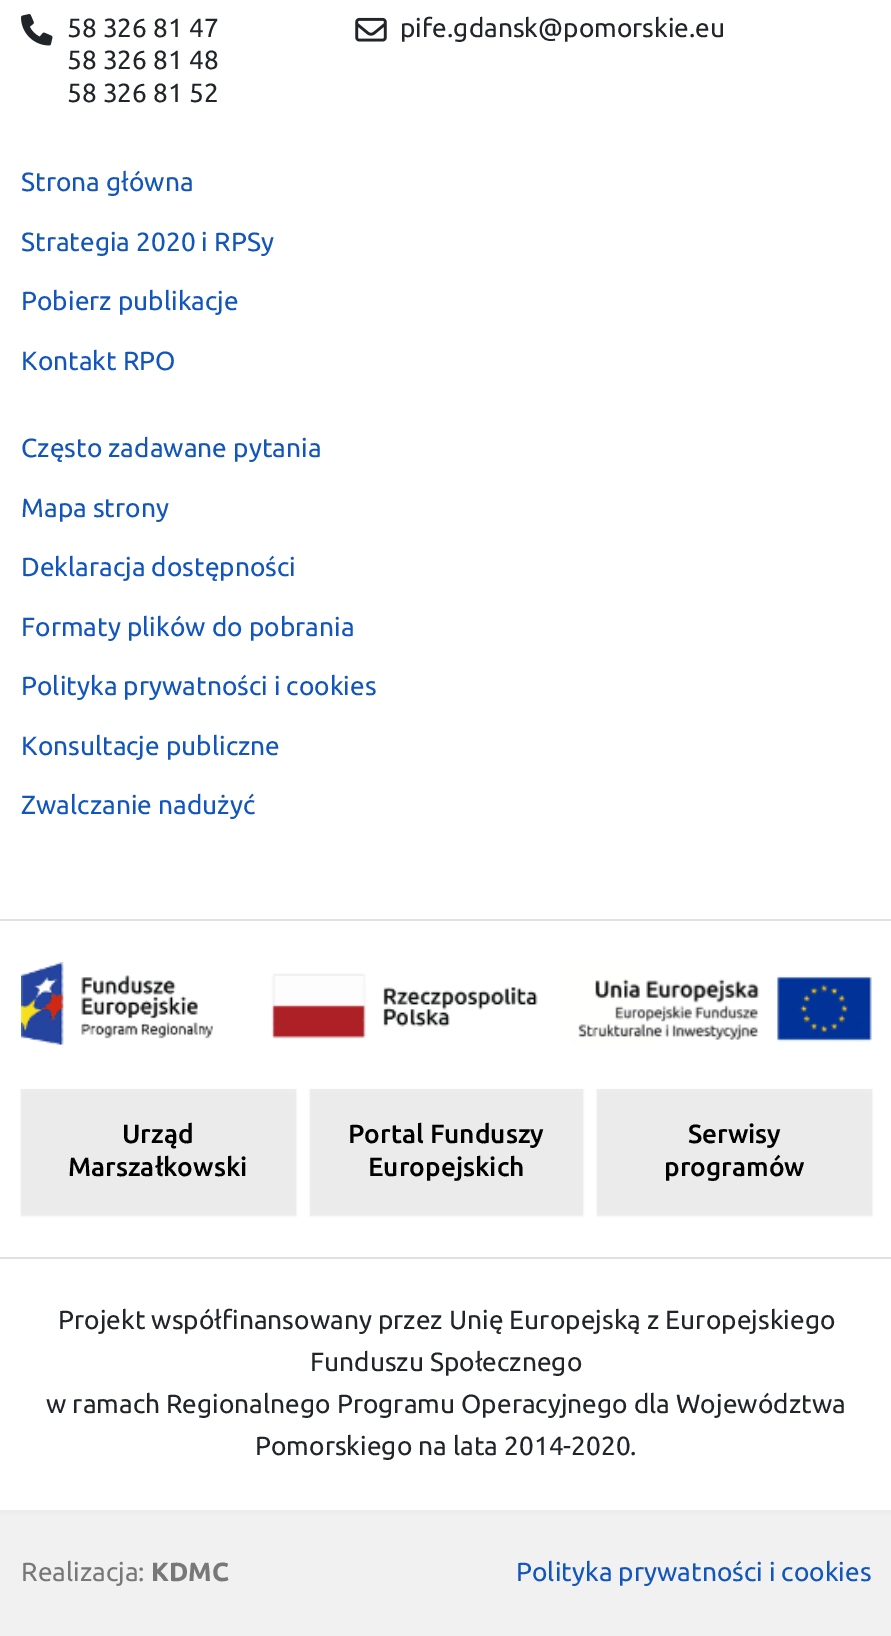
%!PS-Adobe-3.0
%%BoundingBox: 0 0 891 1636
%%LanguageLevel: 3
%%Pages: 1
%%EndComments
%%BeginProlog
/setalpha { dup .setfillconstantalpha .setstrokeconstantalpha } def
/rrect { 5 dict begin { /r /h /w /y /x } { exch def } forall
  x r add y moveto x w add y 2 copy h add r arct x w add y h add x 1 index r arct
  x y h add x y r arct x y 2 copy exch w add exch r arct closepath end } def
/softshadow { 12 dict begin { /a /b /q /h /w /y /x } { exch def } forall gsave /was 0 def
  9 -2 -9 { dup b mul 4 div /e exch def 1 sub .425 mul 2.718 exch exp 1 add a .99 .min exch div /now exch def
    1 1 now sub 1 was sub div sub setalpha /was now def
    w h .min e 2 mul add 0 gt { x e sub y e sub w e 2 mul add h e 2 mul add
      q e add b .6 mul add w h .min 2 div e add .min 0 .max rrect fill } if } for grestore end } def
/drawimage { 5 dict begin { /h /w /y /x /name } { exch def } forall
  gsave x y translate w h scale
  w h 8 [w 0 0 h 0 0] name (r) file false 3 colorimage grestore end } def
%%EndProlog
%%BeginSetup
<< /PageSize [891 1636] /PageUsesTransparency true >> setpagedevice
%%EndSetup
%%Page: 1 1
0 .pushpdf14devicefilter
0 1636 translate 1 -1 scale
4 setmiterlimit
1 setgray
0 0 891 1636 rectfill
(images/1.raw) 21 14 32 32 drawimage
(images/2.raw) 355 17 32 25 drawimage
0.871 0.886 0.902 setrgbcolor
0 919 891 2 rectfill
(images/3.raw) 21 962 851 83 drawimage
0 setgray
21 1090 275 126 0 1 0.07 softshadow
0.925 setgray
2 setlinewidth
22 1090 273 124 rectstroke
0 setgray
310 1090 273 126 0 1 0.07 softshadow
0.925 setgray
311 1090 271 124 rectstroke
0 setgray
597 1090 275 126 0 1 0.07 softshadow
0.925 setgray
598 1090 273 124 rectstroke
gsave
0 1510 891 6 rectclip
0 setgray
0 1260 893 254 0 3.5 0.07 softshadow
grestore
0.871 0.886 0.902 setrgbcolor
0 1257 891 2 rectfill
0.75 setalpha
0.925 setgray
0 1510 891 126 rectfill
/Ubuntu-Regular [26.25 0 0 -26.25 0 0] selectfont
1 setalpha
0.129 0.145 0.161 setrgbcolor
67 37 moveto (58 326 81 47) show
67 69 moveto (58 326 81 48) show
67 102 moveto (58 326 81 52) show
400 37 moveto (pife.gdansk@pomorskie.eu) show
0.071 0.337 0.733 setrgbcolor
21 191 moveto (Strona główna) show
21 251 moveto (Strategia 2020 i RPSy) show
21 310 moveto (Pobierz publikacje) show
21 370 moveto (Kontakt RPO) show
21 457 moveto (Często zadawane pytania) show
21 517 moveto (Mapa strony) show
21 576 moveto (Deklaracja dostępności) show
21 636 moveto (Formaty plików do pobrania) show
21 695 moveto (Polityka prywatności i cookies) show
21 755 moveto (Konsultacje publiczne) show
21 814 moveto (Zwalczanie nadużyć) show
/Ubuntu-Medium [26.25 0 0 -26.25 0 0] selectfont
0 setgray
122 1143 moveto (Urząd) show
68 1176 moveto (Marszałkowski) show
348 1143 moveto (Portal Funduszy) show
368 1176 moveto (Europejskich) show
688 1143 moveto (Serwisy) show
664 1176 moveto (programów) show
/Ubuntu-Regular [26.25 0 0 -26.25 0 0] selectfont
0.129 0.145 0.161 setrgbcolor
58 1329 moveto (Projekt współfinansowany przez Unię Europejską z Europejskiego) show
310 1371 moveto (Funduszu Społecznego) show
46 1413 moveto (w ramach Regionalnego Programu Operacyjnego dla Województwa) show
255 1455 moveto (Pomorskiego na lata 2014-2020.) show
0.471 setgray
21 1581 moveto (Realizacja:) show
/Ubuntu-Bold [26.25 0 0 -26.25 0 0] selectfont
151 1581 moveto (KDMC) show
/Ubuntu-Regular [26.25 0 0 -26.25 0 0] selectfont
0.071 0.337 0.733 setrgbcolor
516 1581 moveto (Polityka prywatności i cookies) show
.poppdf14devicefilter showpage
%%EOF
